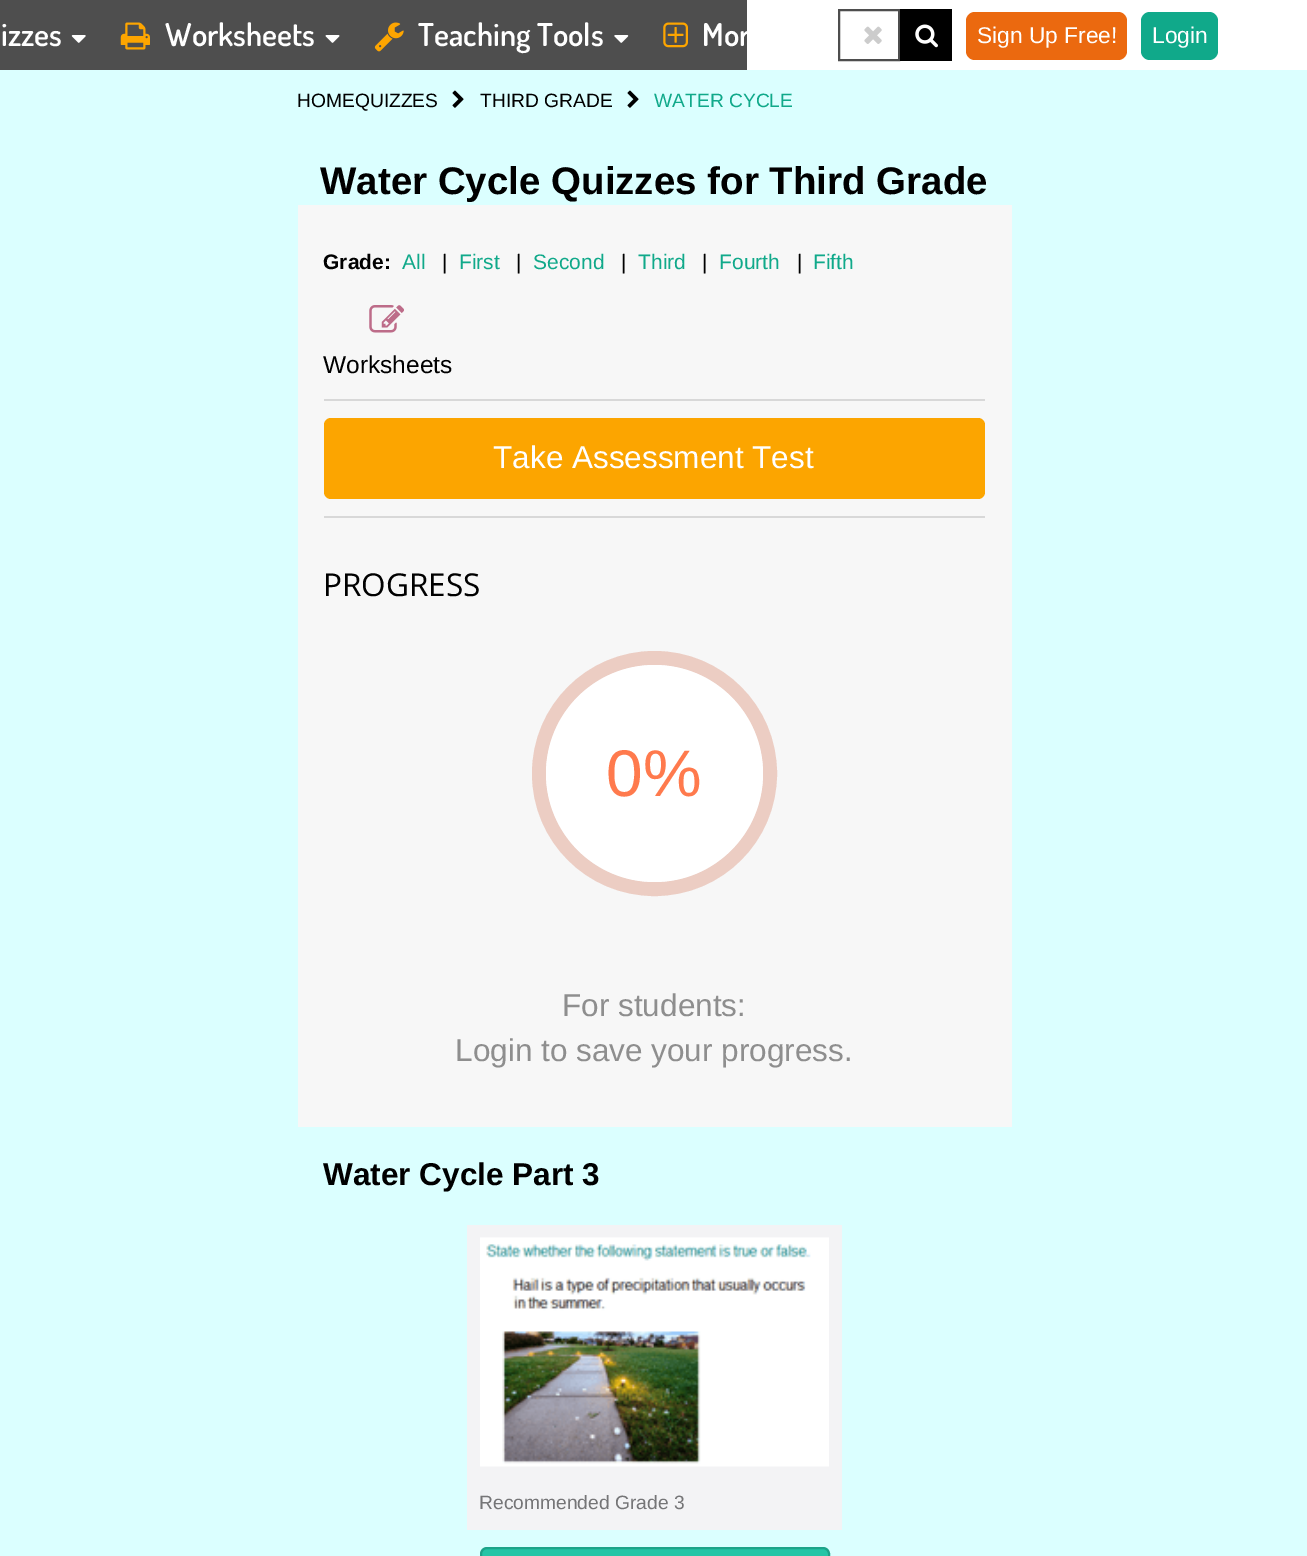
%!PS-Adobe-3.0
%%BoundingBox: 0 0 1307 1556
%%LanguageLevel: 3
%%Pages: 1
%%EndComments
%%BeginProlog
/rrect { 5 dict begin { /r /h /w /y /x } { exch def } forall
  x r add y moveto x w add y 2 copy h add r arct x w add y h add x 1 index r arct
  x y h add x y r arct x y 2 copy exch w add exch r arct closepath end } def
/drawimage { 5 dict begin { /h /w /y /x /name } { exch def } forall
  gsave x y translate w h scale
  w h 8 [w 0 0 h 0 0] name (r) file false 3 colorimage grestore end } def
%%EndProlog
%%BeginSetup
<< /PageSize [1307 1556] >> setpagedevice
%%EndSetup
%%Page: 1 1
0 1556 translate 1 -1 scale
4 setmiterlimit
1 setgray
0 0 1307 1556 rectfill
0.306 setgray
0 0 747 70 rectfill
(images/1.raw) 71 35 15 8 drawimage
(images/2.raw) 120 22 30 28 drawimage
(images/3.raw) 325 35 15 8 drawimage
(images/4.raw) 374 22 30 30 drawimage
(images/5.raw) 614 35 15 8 drawimage
(images/6.raw) 663 22 25 26 drawimage
2 setlinewidth
839 10 60 50 rectstroke
(images/7.raw) 864 26 18 18 drawimage
0 setgray
900 9 52 52 rectfill
(images/8.raw) 915 24 23 24 drawimage
0.922 0.412 0.059 setrgbcolor
966 12 161 48 9 rrect fill
0.063 0.663 0.541 setrgbcolor
1141 12 77 48 9 rrect fill
0.859 1 1 setrgbcolor
0 70 1307 1486 rectfill
(images/9.raw) 452 90 12 18 drawimage
(images/9.raw) 627 90 12 18 drawimage
0.969 setgray
298 205 714 922 rectfill
0.847 setgray
324 399 661 2 rectfill
(images/10.raw) 369 305 35 28 drawimage
324 516 661 2 rectfill
0.988 0.647 0 setrgbcolor
324 418 661 81 7 rrect fill
0.925 0.804 0.765 setrgbcolor
14 setlinewidth
newpath 654.5 773.5 115.5 0 360 arc closepath stroke
1 setgray
newpath 654.5 773.5 108.5 0 360 arc closepath fill
0.953 0.953 0.961 setrgbcolor
467 1225 375 305 rectfill
(images/11.raw) 480 1237 349 230 drawimage
0.145 0.773 0.651 setrgbcolor
481 1548 348 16 6 rrect gsave fill grestore
0.114 0.639 0.537 setrgbcolor
2 setlinewidth
stroke
/Dosis-SemiBold [31.5 0 0 -31.5 0 0] selectfont
1 setgray
1 46 moveto (izzes) show
165 46 moveto (Worksheets) show
418 46 moveto (Teaching Tools) show
702 46 moveto (Mor) show
/LiberationSans-Regular [22.75 0 0 -22.75 0 0] selectfont
977 43 moveto (Sign Up Free!) show
1152 43 moveto (Login) show
/LiberationSans-Regular [19.25 0 0 -19.25 0 0] selectfont
0 setgray
297 107 moveto (HOMEQUIZZES) show
480 107 moveto (THIRD GRADE) show
0.063 0.663 0.541 setrgbcolor
654 107 moveto (WATER CYCLE) show
/LiberationSans-Bold [38.5 0 0 -38.5 0 0] selectfont
0 setgray
320 194 moveto (Water Cycle Quizzes for Third Grade) show
/LiberationSans-Bold [21 0 0 -21 0 0] selectfont
323 269 moveto (Grade:) show
/LiberationSans-Regular [21 0 0 -21 0 0] selectfont
0.063 0.663 0.541 setrgbcolor
402 269 moveto (All) show
0 setgray
442 269 moveto (|) show
0.063 0.663 0.541 setrgbcolor
459 269 moveto (First) show
0 setgray
516 269 moveto (|) show
0.063 0.663 0.541 setrgbcolor
533 269 moveto (Second) show
0 setgray
621 269 moveto (|) show
0.063 0.663 0.541 setrgbcolor
638 269 moveto (Third) show
0 setgray
702 269 moveto (|) show
0.063 0.663 0.541 setrgbcolor
719 269 moveto (Fourth) show
0 setgray
797 269 moveto (|) show
0.063 0.663 0.541 setrgbcolor
813 269 moveto (Fifth) show
/LiberationSans-Regular [24.5 0 0 -24.5 0 0] selectfont
0 setgray
323 373 moveto (Worksheets) show
/LiberationSans-Regular [31.5 0 0 -31.5 0 0] selectfont
1 setgray
493 468 moveto (Take Assessment Test) show
/OpenSans-Regular [31.5 0 0 -31.5 0 0] selectfont
0 setgray
323 596 moveto (PROGRESS) show
/LiberationSans-Regular [66 0 0 -66 0 0] selectfont
1 0.478 0.302 setrgbcolor
606 796 moveto (0%) show
/LiberationSans-Regular [31.5 0 0 -31.5 0 0] selectfont
0.557 setgray
562 1016 moveto (For students:) show
455 1061 moveto (Login to save your progress.) show
/LiberationSans-Bold [31.5 0 0 -31.5 0 0] selectfont
0 setgray
323 1185 moveto (Water Cycle Part 3) show
/LiberationSans-Regular [19.25 0 0 -19.25 0 0] selectfont
0.459 0.459 0.467 setrgbcolor
479 1509 moveto (Recommended Grade 3) show
showpage
%%EOF
